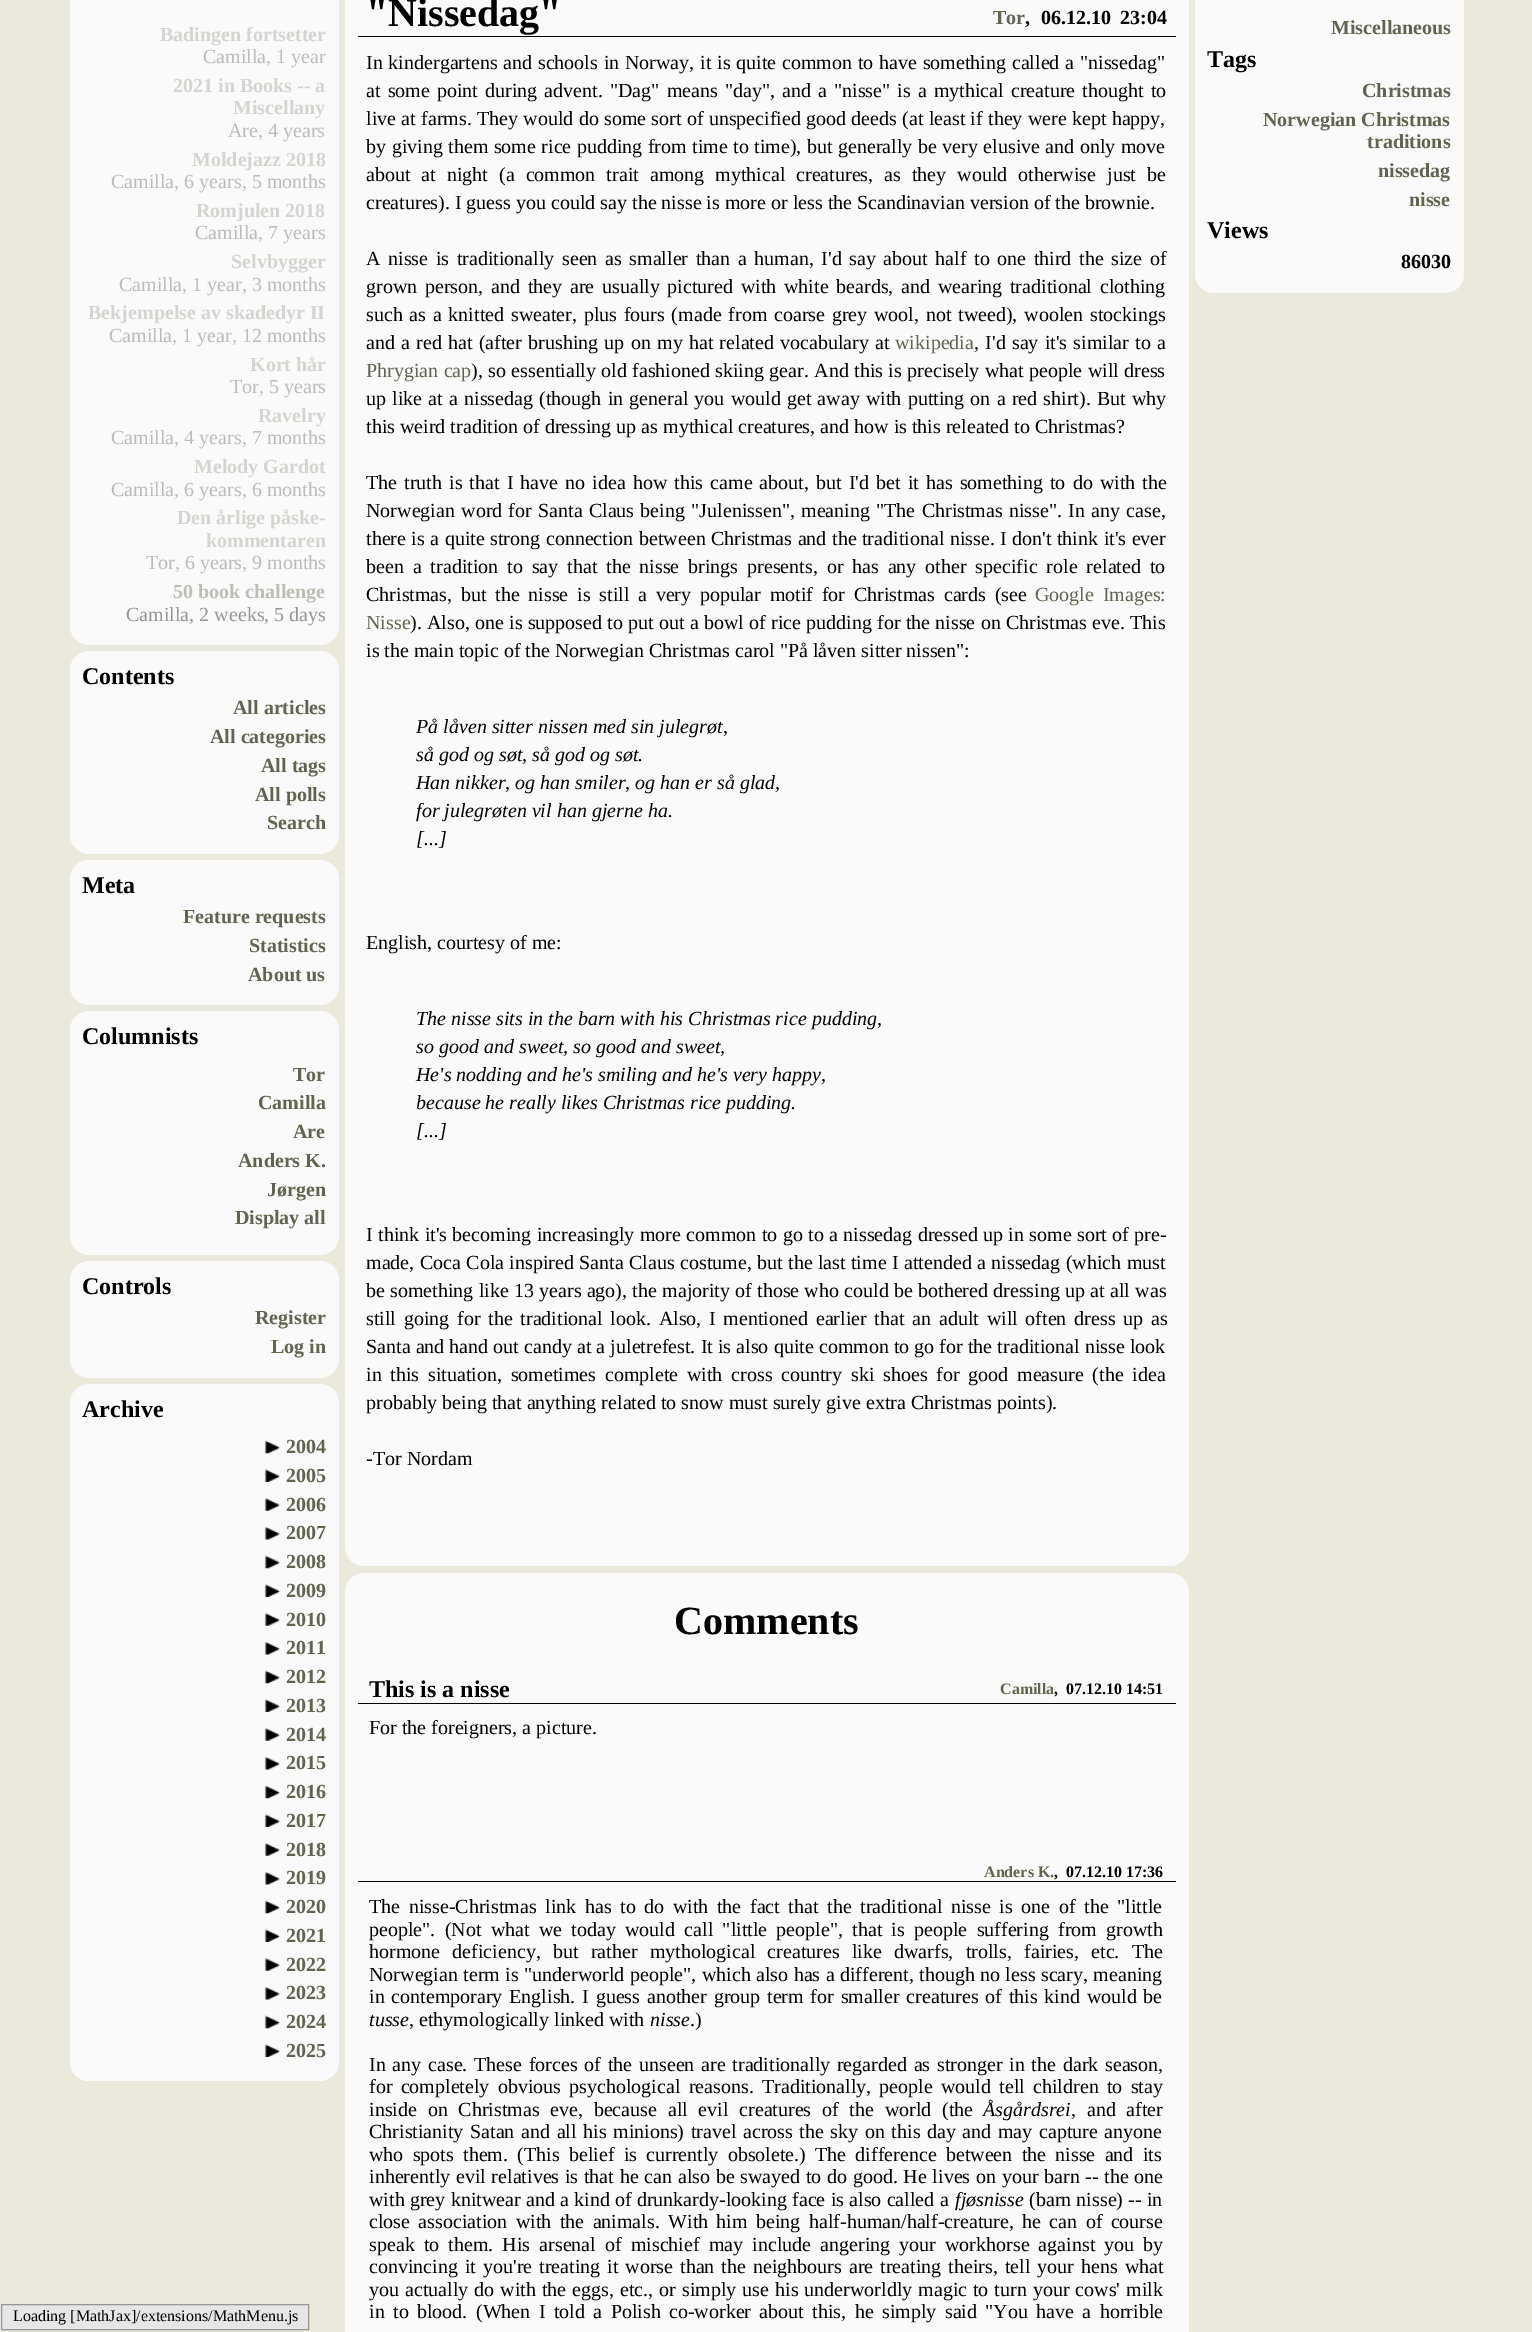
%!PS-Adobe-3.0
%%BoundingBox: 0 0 1532 2332
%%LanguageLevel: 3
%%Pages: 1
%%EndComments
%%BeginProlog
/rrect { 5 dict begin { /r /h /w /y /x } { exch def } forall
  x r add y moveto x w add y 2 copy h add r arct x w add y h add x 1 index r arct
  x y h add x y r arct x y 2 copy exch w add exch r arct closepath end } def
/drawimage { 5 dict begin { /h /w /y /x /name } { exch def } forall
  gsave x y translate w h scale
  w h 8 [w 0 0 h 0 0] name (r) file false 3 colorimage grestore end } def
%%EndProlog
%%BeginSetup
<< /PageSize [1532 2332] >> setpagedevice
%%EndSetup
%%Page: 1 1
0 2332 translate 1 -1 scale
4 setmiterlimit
0.918 0.914 0.859 setrgbcolor
0 0 1532 2332 rectfill
0.98 setgray
70 -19 269 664 19 rrect fill
70 651 269 203 19 rrect fill
70 860 269 145 19 rrect fill
70 1011 269 244 19 rrect fill
70 1261 269 117 19 rrect fill
70 1384 269 697 19 rrect fill
(images/1.raw) 264 1440 16 14 drawimage
(images/2.raw) 264 1469 17 13 drawimage
(images/3.raw) 264 1498 16 13 drawimage
(images/4.raw) 264 1527 16 13 drawimage
(images/1.raw) 264 1555 16 14 drawimage
(images/2.raw) 264 1584 17 13 drawimage
(images/3.raw) 264 1613 16 13 drawimage
(images/4.raw) 264 1642 16 13 drawimage
(images/1.raw) 264 1670 16 14 drawimage
(images/2.raw) 264 1699 17 13 drawimage
(images/3.raw) 264 1728 16 13 drawimage
(images/4.raw) 264 1757 16 13 drawimage
(images/1.raw) 264 1785 16 14 drawimage
(images/2.raw) 264 1814 17 13 drawimage
(images/3.raw) 264 1843 16 13 drawimage
(images/4.raw) 264 1872 16 13 drawimage
(images/1.raw) 264 1900 16 14 drawimage
(images/2.raw) 264 1929 17 13 drawimage
(images/3.raw) 264 1958 16 13 drawimage
(images/4.raw) 264 1987 16 13 drawimage
(images/1.raw) 264 2015 16 14 drawimage
(images/2.raw) 264 2044 17 13 drawimage
345 -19 844 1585 19 rrect fill
0 setgray
358 36 818 1 rectfill
0.98 setgray
345 1573 844 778 19 rrect fill
0 setgray
358 1703 818 1 rectfill
358 1881 818 1 rectfill
0.98 setgray
1195 -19 269 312 19 rrect fill
0.902 setgray
newpath 1.5 2304.5 moveto 308.5 2304.5 lineto 308.5 2329.5 lineto 1.5 2329.5 lineto closepath gsave fill grestore
0.584 setgray
stroke
/LiberationSerif-Bold [20 0 0 -20 0 0] selectfont
0.827 0.835 0.812 setrgbcolor
160 41 moveto (Badingen fortsetter) show
/LiberationSerif-Regular [20 0 0 -20 0 0] selectfont
0.737 setgray
203 63 moveto (Camilla, 1 year) show
/LiberationSerif-Bold [20 0 0 -20 0 0] selectfont
0.827 0.835 0.812 setrgbcolor
173 92 moveto (2021 in Books -- a) show
233 114 moveto (Miscellany) show
/LiberationSerif-Regular [20 0 0 -20 0 0] selectfont
0.737 setgray
228 137 moveto (Are, 4 years) show
/LiberationSerif-Bold [20 0 0 -20 0 0] selectfont
0.827 0.835 0.812 setrgbcolor
192 166 moveto (Moldejazz 2018) show
/LiberationSerif-Regular [20 0 0 -20 0 0] selectfont
0.737 setgray
111 188 moveto (Camilla, 6 years, 5 months) show
/LiberationSerif-Bold [20 0 0 -20 0 0] selectfont
0.827 0.835 0.812 setrgbcolor
196 217 moveto (Romjulen 2018) show
/LiberationSerif-Regular [20 0 0 -20 0 0] selectfont
0.737 setgray
195 239 moveto (Camilla, 7 years) show
/LiberationSerif-Bold [20 0 0 -20 0 0] selectfont
0.827 0.835 0.812 setrgbcolor
231 268 moveto (Selvbygger) show
/LiberationSerif-Regular [20 0 0 -20 0 0] selectfont
0.737 setgray
119 291 moveto (Camilla, 1 year, 3 months) show
/LiberationSerif-Bold [20 0 0 -20 0 0] selectfont
0.827 0.835 0.812 setrgbcolor
88 319 moveto (Bekjempelse av skadedyr II) show
/LiberationSerif-Regular [20 0 0 -20 0 0] selectfont
0.737 setgray
109 342 moveto (Camilla, 1 year, 12 months) show
/LiberationSerif-Bold [20 0 0 -20 0 0] selectfont
0.827 0.835 0.812 setrgbcolor
250 371 moveto (Kort hår) show
/LiberationSerif-Regular [20 0 0 -20 0 0] selectfont
0.737 setgray
230 393 moveto (Tor, 5 years) show
/LiberationSerif-Bold [20 0 0 -20 0 0] selectfont
0.827 0.835 0.812 setrgbcolor
258 422 moveto (Ravelry) show
/LiberationSerif-Regular [20 0 0 -20 0 0] selectfont
0.737 setgray
111 444 moveto (Camilla, 4 years, 7 months) show
/LiberationSerif-Bold [20 0 0 -20 0 0] selectfont
0.827 0.835 0.812 setrgbcolor
194 473 moveto (Melody Gardot) show
/LiberationSerif-Regular [20 0 0 -20 0 0] selectfont
0.737 setgray
111 496 moveto (Camilla, 6 years, 6 months) show
/LiberationSerif-Bold [20 0 0 -20 0 0] selectfont
0.827 0.835 0.812 setrgbcolor
177 524 moveto (Den årlige påske-) show
206 547 moveto (kommentaren) show
/LiberationSerif-Regular [20 0 0 -20 0 0] selectfont
0.737 setgray
146 569 moveto (Tor, 6 years, 9 months) show
/LiberationSerif-Bold [20 0 0 -20 0 0] selectfont
0.737 0.745 0.714 setrgbcolor
173 598 moveto (50 book challenge) show
/LiberationSerif-Regular [20 0 0 -20 0 0] selectfont
0.588 setgray
126 621 moveto (Camilla, 2 weeks, 5 days) show
/LiberationSerif-Bold [24 0 0 -24 0 0] selectfont
0 setgray
82 684 moveto (Contents) show
/LiberationSerif-Bold [20 0 0 -20 0 0] selectfont
0.373 0.396 0.31 setrgbcolor
233 714 moveto (All articles) show
210 743 moveto (All categories) show
261 772 moveto (All tags) show
255 801 moveto (All polls) show
267 829 moveto (Search) show
/LiberationSerif-Bold [24 0 0 -24 0 0] selectfont
0 setgray
82 893 moveto (Meta) show
/LiberationSerif-Bold [20 0 0 -20 0 0] selectfont
0.373 0.396 0.31 setrgbcolor
183 923 moveto (Feature requests) show
249 952 moveto (Statistics) show
248 981 moveto (About us) show
/LiberationSerif-Bold [24 0 0 -24 0 0] selectfont
0 setgray
82 1044 moveto (Columnists) show
/LiberationSerif-Bold [20 0 0 -20 0 0] selectfont
0.373 0.396 0.31 setrgbcolor
293 1081 moveto (Tor) show
258 1109 moveto (Camilla) show
293 1138 moveto (Are) show
238 1167 moveto (Anders K.) show
267 1196 moveto (Jørgen) show
235 1224 moveto (Display all) show
/LiberationSerif-Bold [24 0 0 -24 0 0] selectfont
0 setgray
82 1294 moveto (Controls) show
/LiberationSerif-Bold [20 0 0 -20 0 0] selectfont
0.373 0.396 0.31 setrgbcolor
255 1324 moveto (Register) show
271 1353 moveto (Log in) show
/LiberationSerif-Bold [24 0 0 -24 0 0] selectfont
0 setgray
82 1417 moveto (Archive) show
/LiberationSerif-Bold [20 0 0 -20 0 0] selectfont
0.373 0.396 0.31 setrgbcolor
286 1453 moveto (2004) show
286 1482 moveto (2005) show
286 1511 moveto (2006) show
286 1539 moveto (2007) show
286 1568 moveto (2008) show
286 1597 moveto (2009) show
286 1626 moveto (2010) show
286 1654 moveto (2011) show
286 1683 moveto (2012) show
286 1712 moveto (2013) show
286 1741 moveto (2014) show
286 1769 moveto (2015) show
286 1798 moveto (2016) show
286 1827 moveto (2017) show
286 1856 moveto (2018) show
286 1884 moveto (2019) show
286 1913 moveto (2020) show
286 1942 moveto (2021) show
286 1971 moveto (2022) show
286 1999 moveto (2023) show
286 2028 moveto (2024) show
286 2057 moveto (2025) show
/LiberationSerif-Bold [40 0 0 -40 0 0] selectfont
0 setgray
366 26 moveto ("Nissedag") show
/LiberationSerif-Bold [20 0 0 -20 0 0] selectfont
0.373 0.396 0.31 setrgbcolor
993 24 moveto (Tor) show
0 setgray
1025 24 moveto (,) show
1041 24 moveto (06.12.10) show
1120 24 moveto (23:04) show
/LiberationSerif-Regular [20 0 0 -20 0 0] selectfont
366 69 moveto 0.8 0 32 (In kindergartens and schools in Norway, it is quite common to have something called a "nissedag") widthshow
366 97 moveto 2.1 0 32 (at some point during advent. "Dag" means "day", and a "nisse" is a mythical creature thought to) widthshow
366 125 moveto 0.3 0 32 (live at farms. They would do some sort of unspecified good deeds \(at least if they were kept happy,) widthshow
366 153 moveto 0.5 0 32 (by giving them some rice pudding from time to time\), but generally be very elusive and only move) widthshow
366 181 moveto 6 0 32 (about at night \(a common trait among mythical creatures, as they would otherwise just be) widthshow
366 209 moveto (creatures\). I guess you could say the nisse is more or less the Scandinavian version of the brownie.) show
366 265 moveto 2.6 0 32 (A nisse is traditionally seen as smaller than a human, I'd say about half to one third the size of) widthshow
366 293 moveto 2.75 0 32 (grown person, and they are usually pictured with white beards, and wearing traditional clothing) widthshow
366 321 moveto 1.75 0 32 (such as a knitted sweater, plus fours \(made from coarse grey wool, not tweed\), woolen stockings) widthshow
366 349 moveto 1.25 0 32 (and a red hat \(after brushing up on my hat related vocabulary at) widthshow
0.373 0.396 0.31 setrgbcolor
895 349 moveto (wikipedia) show
0 setgray
974 349 moveto 1.25 0 32 (, I'd say it's similar to a) widthshow
0.373 0.396 0.31 setrgbcolor
366 377 moveto 0.4 0 32 (Phrygian cap) widthshow
0 setgray
471 377 moveto 0.4 0 32 (\), so essentially old fashioned skiing gear. And this is precisely what people will dress) widthshow
366 405 moveto 1.2 0 32 (up like at a nissedag \(though in general you would get away with putting on a red shirt\). But why) widthshow
366 433 moveto (this weird tradition of dressing up as mythical creatures, and how is this releated to Christmas?) show
366 489 moveto 2.1 0 32 (The truth is that I have no idea how this came about, but I'd bet it has something to do with the) widthshow
366 517 moveto 1.25 0 32 (Norwegian word for Santa Claus being "Julenissen", meaning "The Christmas nisse". In any case,) widthshow
366 545 moveto 0.5 0 32 (there is a quite strong connection between Christmas and the traditional nisse. I don't think it's ever) widthshow
366 573 moveto 3.9 0 32 (been a tradition to say that the nisse brings presents, or has any other specific role related to) widthshow
366 601 moveto 3.75 0 32 (Christmas, but the nisse is still a very popular motif for Christmas cards \(see) widthshow
0.373 0.396 0.31 setrgbcolor
1035 601 moveto 3.75 0 32 (Google Images:) widthshow
366 629 moveto (Nisse) show
0 setgray
410 629 moveto 0.25 0 32 (\). Also, one is supposed to put out a bowl of rice pudding for the nisse on Christmas eve. This) widthshow
366 657 moveto (is the main topic of the Norwegian Christmas carol "På låven sitter nissen":) show
/LiberationSerif-Italic [20 0 0 -20 0 0] selectfont
416 733 moveto (På låven sitter nissen med sin julegrøt,) show
416 761 moveto (så god og søt, så god og søt.) show
416 789 moveto (Han nikker, og han smiler, og han er så glad,) show
416 817 moveto (for julegrøten vil han gjerne ha.) show
416 845 moveto ([...]) show
/LiberationSerif-Regular [20 0 0 -20 0 0] selectfont
366 949 moveto (English, courtesy of me:) show
/LiberationSerif-Italic [20 0 0 -20 0 0] selectfont
416 1025 moveto (The nisse sits in the barn with his Christmas rice pudding,) show
416 1053 moveto (so good and sweet, so good and sweet,) show
416 1081 moveto (He's nodding and he's smiling and he's very happy,) show
416 1109 moveto (because he really likes Christmas rice pudding.) show
416 1137 moveto ([...]) show
/LiberationSerif-Regular [20 0 0 -20 0 0] selectfont
366 1241 moveto 0.4 0 32 (I think it's becoming increasingly more common to go to a nissedag dressed up in some sort of pre-) widthshow
366 1269 moveto 0.4 0 32 (made, Coca Cola inspired Santa Claus costume, but the last time I attended a nissedag \(which must) widthshow
366 1297 moveto 0.25 0 32 (be something like 13 years ago\), the majority of those who could be bothered dressing up at all was) widthshow
366 1325 moveto 2.75 0 32 (still going for the traditional look. Also, I mentioned earlier that an adult will often dress up as) widthshow
366 1353 moveto 0.1 0 32 (Santa and hand out candy at a juletrefest. It is also quite common to go for the traditional nisse look) widthshow
366 1381 moveto 3.75 0 32 (in this situation, sometimes complete with cross country ski shoes for good measure \(the idea) widthshow
366 1409 moveto (probably being that anything related to snow must surely give extra Christmas points\).) show
366 1465 moveto (-Tor Nordam) show
/LiberationSerif-Bold [40 0 0 -40 0 0] selectfont
674 1634 moveto (Comments) show
/LiberationSerif-Bold [24 0 0 -24 0 0] selectfont
369 1697 moveto (This is a nisse) show
/LiberationSerif-Bold [16 0 0 -16 0 0] selectfont
0.373 0.396 0.31 setrgbcolor
1000 1694 moveto (Camilla) show
0 setgray
1054 1694 moveto (,  07.12.10 14:51) show
/LiberationSerif-Regular [20 0 0 -20 0 0] selectfont
369 1734 moveto (For the foreigners, a picture.) show
/LiberationSerif-Bold [16 0 0 -16 0 0] selectfont
0.373 0.396 0.31 setrgbcolor
984 1877 moveto (Anders K.) show
0 setgray
1054 1877 moveto (,  07.12.10 17:36) show
/LiberationSerif-Regular [20 0 0 -20 0 0] selectfont
369 1913 moveto 3.6 0 32 (The nisse-Christmas link has to do with the fact that the traditional nisse is one of the "little) widthshow
369 1936 moveto 4.25 0 32 (people". \(Not what we today would call "little people", that is people suffering from growth) widthshow
369 1958 moveto 7.25 0 32 (hormone deficiency, but rather mythological creatures like dwarfs, trolls, fairies, etc. The) widthshow
369 1981 moveto 0.4 0 32 (Norwegian term is "underworld people", which also has a different, though no less scary, meaning) widthshow
369 2003 moveto 1.8 0 32 (in contemporary English. I guess another group term for smaller creatures of this kind would be) widthshow
/LiberationSerif-Italic [20 0 0 -20 0 0] selectfont
369 2026 moveto (tusse) show
/LiberationSerif-Regular [20 0 0 -20 0 0] selectfont
409 2026 moveto (, ethymologically linked with) show
/LiberationSerif-Italic [20 0 0 -20 0 0] selectfont
650 2026 moveto (nisse) show
/LiberationSerif-Regular [20 0 0 -20 0 0] selectfont
690 2026 moveto (.\)) show
369 2071 moveto 1.75 0 32 (In any case. These forces of the unseen are traditionally regarded as stronger in the dark season,) widthshow
369 2093 moveto 3.25 0 32 (for completely obvious psychological reasons. Traditionally, people would tell children to stay) widthshow
369 2116 moveto 5.75 0 32 (inside on Christmas eve, because all evil creatures of the world \(the) widthshow
/LiberationSerif-Italic [20 0 0 -20 0 0] selectfont
983 2116 moveto (Åsgårdsrei) show
/LiberationSerif-Regular [20 0 0 -20 0 0] selectfont
1071 2116 moveto 5.75 0 32 (, and after) widthshow
369 2138 moveto 1.6 0 32 (Christianity Satan and all his minions\) travel across the sky on this day and may capture anyone) widthshow
369 2161 moveto 4.25 0 32 (who spots them. \(This belief is currently obsolete.\) The difference between the nisse and its) widthshow
369 2183 moveto 0.7 0 32 (inherently evil relatives is that he can also be swayed to do good. He lives on your barn -- the one) widthshow
369 2206 moveto 0.25 0 32 (with grey knitwear and a kind of drunkardy-looking face is also called a) widthshow
/LiberationSerif-Italic [20 0 0 -20 0 0] selectfont
955 2206 moveto (fjøsnisse) show
/LiberationSerif-Regular [20 0 0 -20 0 0] selectfont
1029 2206 moveto 0.25 0 32 (\(barn nisse\) -- in) widthshow
369 2228 moveto 3.4 0 32 (close association with the animals. With him being half-human/half-creature, he can of course) widthshow
369 2251 moveto 4.1 0 32 (speak to them. His arsenal of mischief may include angering your workhorse against you by) widthshow
369 2273 moveto 2 0 32 (convincing it you're treating it worse than the neighbours are treating theirs, tell your hens what) widthshow
369 2296 moveto 1 0 32 (you actually do with the eggs, etc., or simply use his underworldly magic to turn your cows' milk) widthshow
369 2318 moveto 3.4 0 32 (in to blood. \(When I told a Polish co-worker about this, he simply said "You have a horrible) widthshow
/LiberationSerif-Bold [20 0 0 -20 0 0] selectfont
0.373 0.396 0.31 setrgbcolor
1331 34 moveto (Miscellaneous) show
/LiberationSerif-Bold [24 0 0 -24 0 0] selectfont
0 setgray
1207 67 moveto (Tags) show
/LiberationSerif-Bold [20 0 0 -20 0 0] selectfont
0.373 0.396 0.31 setrgbcolor
1362 97 moveto (Christmas) show
1263 126 moveto (Norwegian Christmas) show
1367 148 moveto (traditions) show
1378 177 moveto (nissedag) show
1409 206 moveto (nisse) show
/LiberationSerif-Bold [24 0 0 -24 0 0] selectfont
0 setgray
1207 238 moveto (Views) show
/LiberationSerif-Bold [20 0 0 -20 0 0] selectfont
1401 268 moveto (86030) show
/LiberationSerif-Regular [16 0 0 -16 0 0] selectfont
13 2321 moveto (Loading [MathJax]/extensions/MathMenu.js) show
showpage
%%EOF
